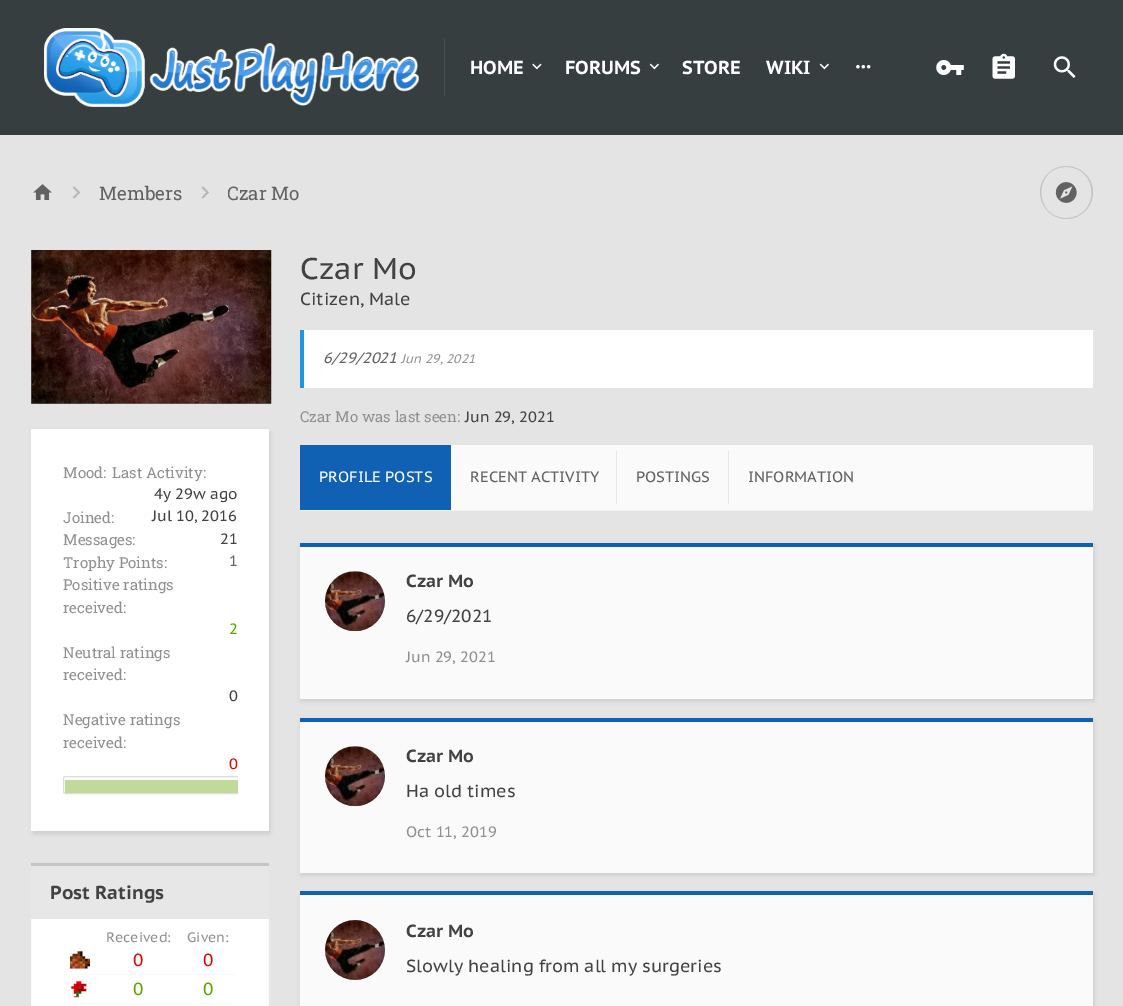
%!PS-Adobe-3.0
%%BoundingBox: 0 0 1123 1006
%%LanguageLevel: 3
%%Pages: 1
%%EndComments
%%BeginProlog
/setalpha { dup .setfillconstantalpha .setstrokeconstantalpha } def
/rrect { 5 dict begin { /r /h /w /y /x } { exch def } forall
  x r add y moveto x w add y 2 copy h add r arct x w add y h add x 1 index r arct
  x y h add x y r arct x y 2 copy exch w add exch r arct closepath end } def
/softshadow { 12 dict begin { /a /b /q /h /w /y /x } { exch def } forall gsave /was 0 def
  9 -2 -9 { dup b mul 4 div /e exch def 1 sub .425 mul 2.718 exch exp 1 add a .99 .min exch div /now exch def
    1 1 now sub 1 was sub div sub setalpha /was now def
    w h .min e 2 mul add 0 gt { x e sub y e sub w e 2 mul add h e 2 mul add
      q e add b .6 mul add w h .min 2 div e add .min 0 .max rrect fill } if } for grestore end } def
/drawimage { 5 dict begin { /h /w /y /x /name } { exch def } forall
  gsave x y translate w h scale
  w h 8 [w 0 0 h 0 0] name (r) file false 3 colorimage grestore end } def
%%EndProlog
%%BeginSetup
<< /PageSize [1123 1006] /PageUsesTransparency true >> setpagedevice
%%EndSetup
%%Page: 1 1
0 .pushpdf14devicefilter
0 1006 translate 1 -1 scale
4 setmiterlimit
0.894 setgray
0 0 1123 1006 rectfill
0.212 0.243 0.251 setrgbcolor
0 0 1123 135 rectfill
0.29 0.318 0.325 setrgbcolor
444 39 1 57 rectfill
(images/1.raw) 44 28 375 79 drawimage
(images/2.raw) 532 63 10 7 drawimage
(images/3.raw) 649 63 10 7 drawimage
(images/3.raw) 819 63 10 7 drawimage
(images/4.raw) 856 64 15 5 drawimage
(images/5.raw) 936 60 28 15 drawimage
(images/6.raw) 992 53 23 26 drawimage
(images/7.raw) 1053 56 23 22 drawimage
(images/8.raw) 33 184 19 16 drawimage
(images/9.raw) 72 186 9 13 drawimage
(images/10.raw) 201 186 8 13 drawimage
0.773 setgray
newpath 1066 166 moveto 1081 166 1093 178 1093 192 curveto 1093 207 1081 219 1066 219 curveto 1052 219 1040 207 1040 192 curveto 1040 178 1052 166 1066 166 curveto closepath 1066 167 moveto 1033 167 1033 218 1066 218 curveto 1100 218 1100 167 1066 167 curveto closepath eofill
(images/11.raw) 1055 182 22 21 drawimage
31 250 240 154 rectfill
(images/12.raw) 31 250 241 154 drawimage
0 setgray
33 431 237 403 1 2 0.1 softshadow
1 setgray
31 429 238 402 1 rrect fill
gsave
63 775 175 25 rectclip
0.867 setgray
63.5 776.5 204 17 2 rrect stroke
grestore
0.753 0.855 0.6 setrgbcolor
65 780 173 13 rectfill
0.906 setgray
31 866 238 53 rectfill
0.773 setgray
31 863 238 3 rectfill
1 setgray
32 919 236 87 rectfill
0.98 setgray
268 919 1 87 rectfill
31 919 1 87 rectfill
(images/13.raw) 70 951 20 18 drawimage
64 974 172 1 rectfill
(images/14.raw) 71 981 16 17 drawimage
64 1003 172 1 rectfill
1 setgray
304 330 789 58 rectfill
0.125 0.588 0.882 setrgbcolor
300 330 4 58 rectfill
0.98 setgray
451 445 642 65 rectfill
0.949 setgray
300 510 793 1 rectfill
0.063 0.38 0.702 setrgbcolor
300 445 151 65 rectfill
0.906 setgray
616 451 1 53 rectfill
728 451 1 53 rectfill
0 setgray
301 545 793 156 0 2 0.1 softshadow
0.98 setgray
300 547 793 152 rectfill
0.063 0.38 0.702 setrgbcolor
300 543 793 4 rectfill
0.773 setgray
newpath 355 601 30 0 360 arc closepath fill
(images/15.raw) 325 571 60 61 drawimage
0 setgray
301 720 793 155 0 2 0.1 softshadow
0.98 setgray
300 722 793 151 rectfill
0.063 0.38 0.702 setrgbcolor
300 718 793 4 rectfill
0.773 setgray
newpath 355 776 30 0 360 arc closepath fill
(images/16.raw) 325 746 60 61 drawimage
0 setgray
301 894 793 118 0 2 0.1 softshadow
0.98 setgray
300 895 793 111 rectfill
0.063 0.38 0.702 setrgbcolor
300 891 793 4 rectfill
0.773 setgray
newpath 355 950 30 0 360 arc closepath fill
(images/17.raw) 325 920 60 60 drawimage
/PTSansCaption-Bold [18.75 0 0 -18.75 0 0] selectfont
1 setgray
470 74 moveto (HOME) show
565 74 moveto (FORUMS) show
682 74 moveto (STORE) show
766 74 moveto (WIKI) show
/RobotoSlab-Regular [18.75 0 0 -18.75 0 0] selectfont
0.384 setgray
99 200 moveto (Members) show
gsave
228 166 72 53 rectclip
227 200 moveto (Czar Mo) show
grestore
/RobotoSlab-Regular [15 0 0 -15 0 0] selectfont
0.565 setgray
63 478 moveto (Mood:) show
112 478 moveto (Last Activity:) show
/PTSansCaption-Regular [15 0 0 -15 0 0] selectfont
0.259 setgray
154 499 moveto (4y 29w ago) show
/RobotoSlab-Regular [15 0 0 -15 0 0] selectfont
0.565 setgray
63 523 moveto (Joined:) show
/PTSansCaption-Regular [15 0 0 -15 0 0] selectfont
0.259 setgray
152 521 moveto (Jul 10, 2016) show
/RobotoSlab-Regular [15 0 0 -15 0 0] selectfont
0.565 setgray
63 545 moveto (Messages:) show
/PTSansCaption-Regular [15 0 0 -15 0 0] selectfont
0.259 setgray
220 544 moveto (21) show
/RobotoSlab-Regular [15 0 0 -15 0 0] selectfont
0.565 setgray
63 568 moveto (Trophy Points:) show
/PTSansCaption-Regular [15 0 0 -15 0 0] selectfont
0.384 setgray
229 566 moveto (1) show
/RobotoSlab-Regular [15 0 0 -15 0 0] selectfont
0.565 setgray
63 590 moveto (Positive ratings) show
63 613 moveto (received:) show
/PTSansCaption-Regular [15 0 0 -15 0 0] selectfont
0.384 0.635 0.004 setrgbcolor
229 634 moveto (2) show
/RobotoSlab-Regular [15 0 0 -15 0 0] selectfont
0.565 setgray
63 658 moveto (Neutral ratings) show
63 680 moveto (received:) show
/PTSansCaption-Regular [15 0 0 -15 0 0] selectfont
0.259 setgray
229 701 moveto (0) show
/RobotoSlab-Regular [15 0 0 -15 0 0] selectfont
0.565 setgray
63 725 moveto (Negative ratings) show
63 748 moveto (received:) show
/PTSansCaption-Regular [15 0 0 -15 0 0] selectfont
0.851 0.043 0 setrgbcolor
229 769 moveto (0) show
/PTSansCaption-Bold [18.75 0 0 -18.75 0 0] selectfont
0.259 setgray
50 899 moveto (Post Ratings) show
/PTSansCaption-Regular [13.75 0 0 -13.75 0 0] selectfont
0.565 setgray
106 942 moveto (Received:) show
187 942 moveto (Given:) show
/PTSansCaption-Regular [17.5 0 0 -17.5 0 0] selectfont
0.851 0.043 0 setrgbcolor
133 966 moveto (0) show
203 966 moveto (0) show
0.384 0.635 0.004 setrgbcolor
133 995 moveto (0) show
203 995 moveto (0) show
/PTSansCaption-Regular [30 0 0 -30 0 0] selectfont
0.259 setgray
300 279 moveto (Czar Mo) show
/PTSansCaption-Regular [17.5 0 0 -17.5 0 0] selectfont
300 305 moveto (Citizen, Male) show
/PTSansCaption-Italic [15 0 0 -15 0 0] selectfont
0.384 setgray
323 363 moveto (6/29/2021) show
/PTSansCaption-Italic [12.5 0 0 -12.5 0 0] selectfont
0.565 setgray
401 363 moveto (Jun 29, 2021) show
/RobotoSlab-Regular [15 0 0 -15 0 0] selectfont
300 422 moveto (Czar Mo was last seen:) show
/PTSansCaption-Regular [15 0 0 -15 0 0] selectfont
0.259 setgray
465 422 moveto (Jun 29, 2021) show
1 setgray
319 482 moveto (PROFILE POSTS) show
0.384 setgray
470 482 moveto (RECENT ACTIVITY) show
636 482 moveto (POSTINGS) show
748 482 moveto (INFORMATION) show
/PTSansCaption-Bold [17.5 0 0 -17.5 0 0] selectfont
0.259 setgray
406 587 moveto (Czar Mo) show
/PTSansCaption-Regular [17.5 0 0 -17.5 0 0] selectfont
406 622 moveto (6/29/2021) show
/PTSansCaption-Regular [15 0 0 -15 0 0] selectfont
0.565 setgray
406 662 moveto (Jun 29, 2021) show
/PTSansCaption-Bold [17.5 0 0 -17.5 0 0] selectfont
0.259 setgray
406 762 moveto (Czar Mo) show
/PTSansCaption-Regular [17.5 0 0 -17.5 0 0] selectfont
406 797 moveto (Ha old times) show
/PTSansCaption-Regular [15 0 0 -15 0 0] selectfont
0.565 setgray
406 837 moveto (Oct 11, 2019) show
/PTSansCaption-Bold [17.5 0 0 -17.5 0 0] selectfont
0.259 setgray
406 937 moveto (Czar Mo) show
/PTSansCaption-Regular [17.5 0 0 -17.5 0 0] selectfont
406 972 moveto (Slowly healing from all my surgeries) show
.poppdf14devicefilter showpage
%%EOF
